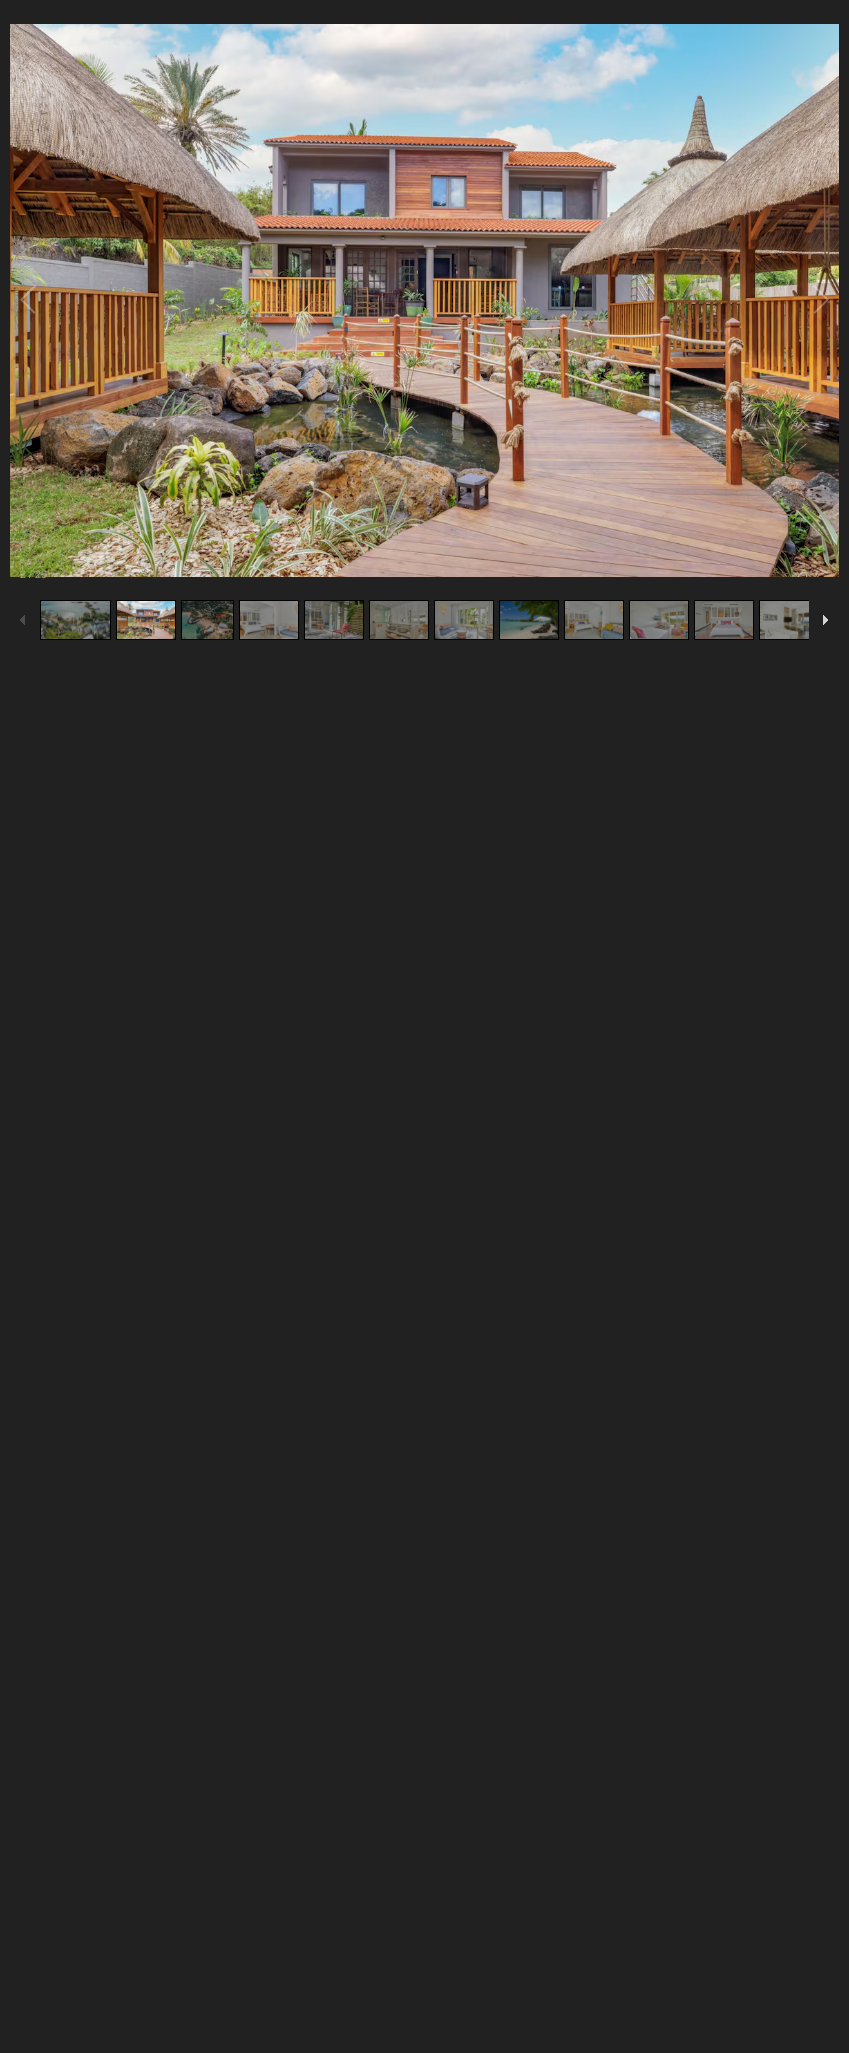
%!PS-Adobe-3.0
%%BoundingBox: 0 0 849 2053
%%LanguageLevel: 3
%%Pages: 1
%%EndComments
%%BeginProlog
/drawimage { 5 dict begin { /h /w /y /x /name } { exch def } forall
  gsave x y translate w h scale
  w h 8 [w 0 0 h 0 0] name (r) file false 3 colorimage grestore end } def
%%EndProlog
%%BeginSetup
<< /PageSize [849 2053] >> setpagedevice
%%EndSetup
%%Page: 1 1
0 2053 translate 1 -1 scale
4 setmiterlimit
0.129 setgray
0 0 849 2053 rectfill
(images/1.raw) 10 24 829 553 drawimage
(images/2.raw) 20 285 16 29 drawimage
(images/3.raw) 813 285 16 29 drawimage
(images/4.raw) 20 615 5 10 drawimage
0 setgray
40 600 71 40 rectfill
(images/5.raw) 41 601 69 38 drawimage
116 600 60 40 rectfill
(images/6.raw) 117 601 58 38 drawimage
181 600 53 40 rectfill
(images/7.raw) 182 601 51 38 drawimage
239 600 60 40 rectfill
(images/8.raw) 240 601 58 38 drawimage
304 600 60 40 rectfill
(images/9.raw) 305 601 58 38 drawimage
369 600 60 40 rectfill
(images/10.raw) 370 601 58 38 drawimage
434 600 60 40 rectfill
(images/11.raw) 435 601 58 38 drawimage
499 600 60 40 rectfill
(images/12.raw) 500 601 58 38 drawimage
564 600 60 40 rectfill
(images/13.raw) 565 601 58 38 drawimage
629 600 60 40 rectfill
(images/14.raw) 630 601 58 38 drawimage
694 600 60 40 rectfill
(images/15.raw) 695 601 58 38 drawimage
759 600 50 40 rectfill
(images/16.raw) 760 601 49 38 drawimage
(images/17.raw) 823 615 5 10 drawimage
/LiberationSans-Regular [11 0 0 -11 0 0] selectfont
0.635 0.678 0.514 setrgbcolor
20 578 moveto (2) show
0.62 0.678 0.482 setrgbcolor
29 578 moveto (/) show
0.624 0.643 0.522 setrgbcolor
35 578 moveto (29) show
showpage
%%EOF
